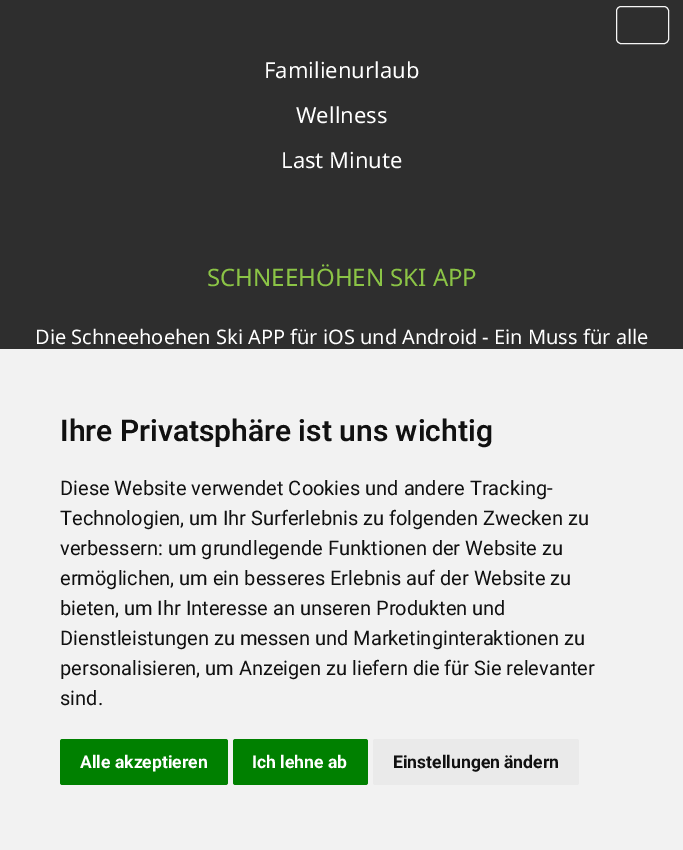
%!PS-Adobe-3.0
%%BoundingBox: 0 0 683 850
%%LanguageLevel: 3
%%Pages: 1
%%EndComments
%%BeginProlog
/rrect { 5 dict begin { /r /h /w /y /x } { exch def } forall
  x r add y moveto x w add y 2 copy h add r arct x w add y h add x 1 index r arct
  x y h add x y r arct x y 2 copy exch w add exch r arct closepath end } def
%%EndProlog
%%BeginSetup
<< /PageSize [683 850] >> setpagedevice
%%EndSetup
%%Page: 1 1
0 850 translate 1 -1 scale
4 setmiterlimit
0.18 setgray
0 0 683 850 rectfill
0.961 setgray
616.5 6.5 52 37 4.5 rrect stroke
0.949 setgray
0 349 683 501 rectfill
0 0.502 0 setrgbcolor
60 739 168 46 2.5 rrect fill
233 739 135 46 2.5 rrect fill
0.918 setgray
373 739 206 46 2.5 rrect fill
/NotoSans-Regular [22 0 0 -22 0 0] selectfont
1 setgray
264 78 moveto (Familienurlaub) show
296 123 moveto (Wellness) show
281 168 moveto (Last Minute) show
/NotoSans-Regular [24 0 0 -24 0 0] selectfont
0.545 0.769 0.275 setrgbcolor
207 286 moveto (SCHNEEHÖHEN SKI APP) show
/NotoSans-Regular [20 0 0 -20 0 0] selectfont
1 setgray
35 344 moveto (Die Schneehoehen Ski APP für iOS und Android - Ein Muss für alle) show
/Roboto-SemiBold [30 0 0 -30 0 0] selectfont
0.067 setgray
60 441 moveto (Ihre Privatsphäre ist uns wichtig) show
/Roboto-Regular [20 0 0 -20 0 0] selectfont
60 495 moveto (Diese Website verwendet Cookies und andere Tracking-) show
60 525 moveto (Technologien, um Ihr Surferlebnis zu folgenden Zwecken zu) show
60 555 moveto (verbessern: um grundlegende Funktionen der Website zu) show
60 585 moveto (ermöglichen, um ein besseres Erlebnis auf der Website zu) show
60 615 moveto (bieten, um Ihr Interesse an unseren Produkten und) show
60 645 moveto (Dienstleistungen zu messen und Marketinginteraktionen zu) show
60 675 moveto (personalisieren, um Anzeigen zu liefern die für Sie relevanter) show
60 705 moveto (sind.) show
/Roboto-Bold [17.5 0 0 -17.5 0 0] selectfont
1 setgray
80 768 moveto (Alle akzeptieren) show
252 768 moveto (Ich lehne ab) show
0.067 setgray
393 768 moveto (Einstellungen ändern) show
showpage
%%EOF
